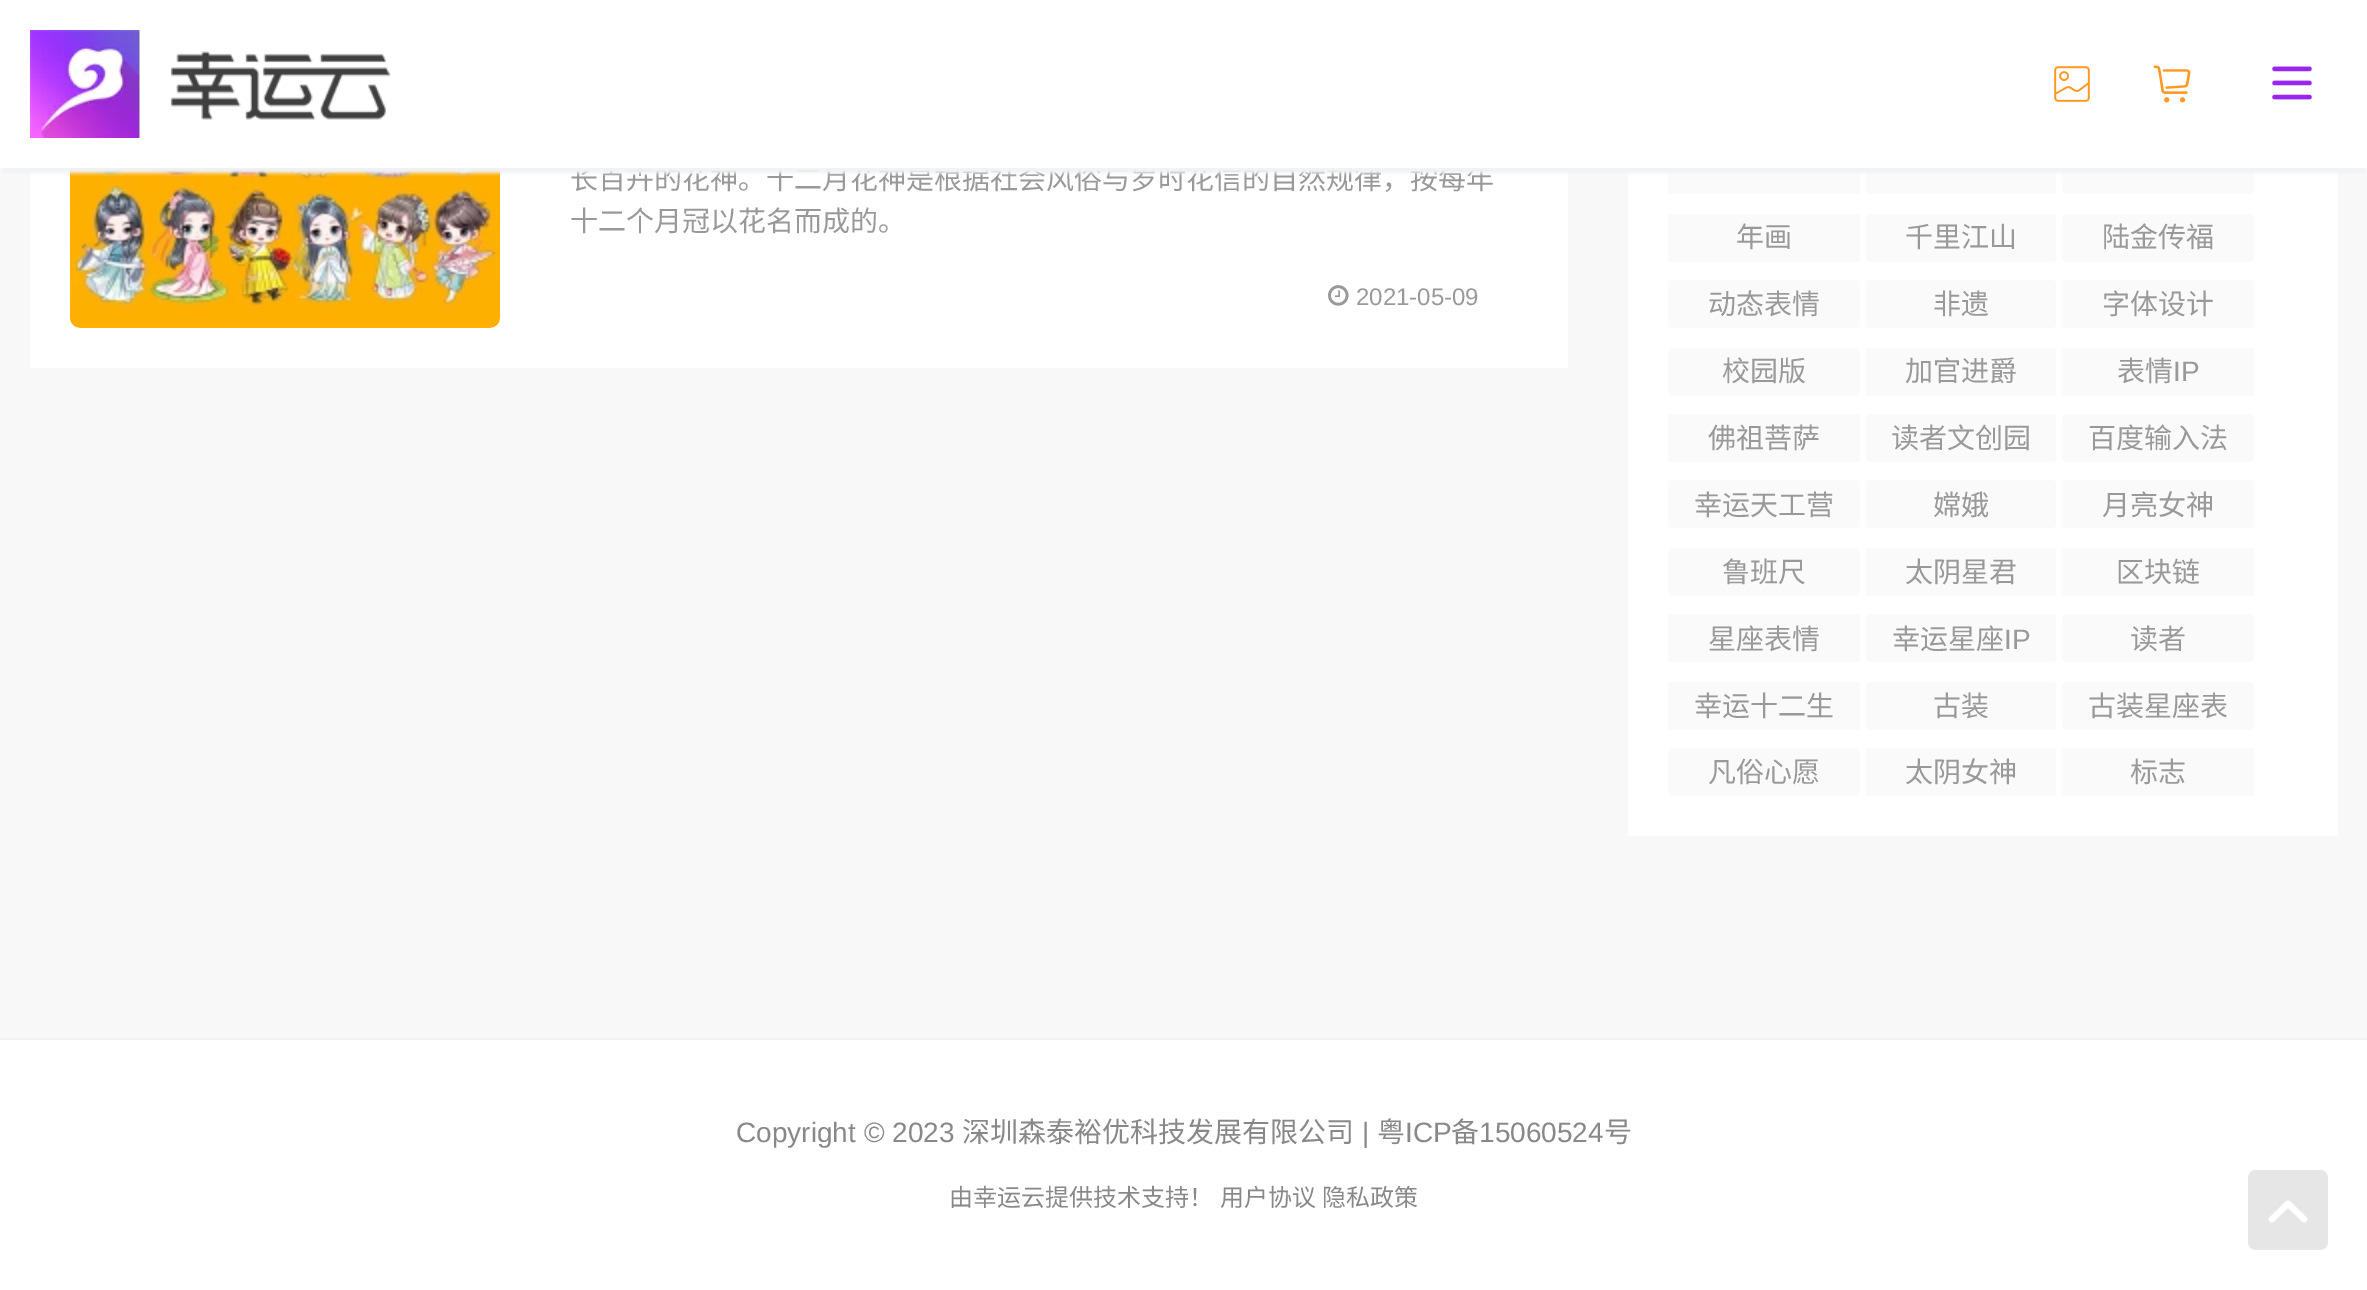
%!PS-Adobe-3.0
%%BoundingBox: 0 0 2367 1290
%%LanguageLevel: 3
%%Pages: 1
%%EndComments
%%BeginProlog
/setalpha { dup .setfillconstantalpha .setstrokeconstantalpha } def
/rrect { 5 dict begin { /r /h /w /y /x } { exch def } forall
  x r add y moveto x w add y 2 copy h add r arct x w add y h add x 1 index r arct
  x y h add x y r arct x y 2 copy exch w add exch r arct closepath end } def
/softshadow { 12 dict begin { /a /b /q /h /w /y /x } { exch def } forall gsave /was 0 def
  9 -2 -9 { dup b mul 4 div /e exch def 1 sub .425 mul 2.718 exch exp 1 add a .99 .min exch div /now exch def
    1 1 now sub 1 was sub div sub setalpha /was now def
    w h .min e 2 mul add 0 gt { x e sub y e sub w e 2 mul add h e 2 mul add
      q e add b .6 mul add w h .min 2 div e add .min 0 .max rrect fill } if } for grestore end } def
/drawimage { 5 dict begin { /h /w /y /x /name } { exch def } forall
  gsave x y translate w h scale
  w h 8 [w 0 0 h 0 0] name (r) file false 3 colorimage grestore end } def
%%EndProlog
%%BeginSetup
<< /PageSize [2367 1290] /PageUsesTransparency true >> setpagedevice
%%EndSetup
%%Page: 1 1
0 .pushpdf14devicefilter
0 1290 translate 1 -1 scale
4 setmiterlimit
0.973 setgray
0 0 2367 1290 rectfill
1 setgray
30 168 1538 200 rectfill
(images/5.raw) 70 168 430 160 drawimage
(images/6.raw) 1328 285 21 21 drawimage
1628 168 710 668 rectfill
0.98 setgray
1668 146 192 48 4 rrect fill
1866 146 190 48 4 rrect fill
2062 146 192 48 4 rrect fill
1668 214 192 48 4 rrect fill
1866 214 190 48 4 rrect fill
2062 214 192 48 4 rrect fill
1668 280 192 48 4 rrect fill
1866 280 190 48 4 rrect fill
2062 280 192 48 4 rrect fill
1668 348 192 48 4 rrect fill
1866 348 190 48 4 rrect fill
2062 348 192 48 4 rrect fill
1668 414 192 48 4 rrect fill
1866 414 190 48 4 rrect fill
2062 414 192 48 4 rrect fill
1668 480 192 48 4 rrect fill
1866 480 190 48 4 rrect fill
2062 480 192 48 4 rrect fill
1668 548 192 48 4 rrect fill
1866 548 190 48 4 rrect fill
2062 548 192 48 4 rrect fill
1668 614 192 48 4 rrect fill
1866 614 190 48 4 rrect fill
2062 614 192 48 4 rrect fill
1668 682 192 48 4 rrect fill
1866 682 190 48 4 rrect fill
2062 682 192 48 4 rrect fill
1668 748 192 48 4 rrect fill
1866 748 190 48 4 rrect fill
2062 748 192 48 4 rrect fill
1 setgray
0 1040 2367 250 rectfill
0.949 setgray
0 1038 2367 2 rectfill
0.902 setgray
2248 1170 80 80 8 rrect fill
(images/7.raw) 2268 1200 40 23 drawimage
/NotoSansCJKSC-Regular [28 0 0 -28 0 0] selectfont
0.6 setgray
570 189 moveto (长百卉的花神。十二月花神是根据社会风俗与岁时花信的自然规律，按每年) show
1 setgray
0 0 2367 168 rectfill
gsave
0 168 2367 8 rectclip
0.941 0.949 0.961 setrgbcolor
4 12 2360 160 0 2 1 softshadow
grestore
(images/3.raw) 2153 65 38 38 drawimage
(images/2.raw) 2054 66 36 36 drawimage
(images/4.raw) 2272 66 40 34 drawimage
(images/1.raw) 30 30 361 108 drawimage
gsave
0 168 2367 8 rectclip
0.941 0.949 0.961 setrgbcolor
4 150 2360 22 0 2 1 softshadow
grestore
0.6 setgray
570 231 moveto (十二个月冠以花名而成的。) show
/LiberationSans-Regular [24 0 0 -24 0 0] selectfont
1356 305 moveto (2021-05-09) show
/NotoSansCJKSC-Regular [28 0 0 -28 0 0] selectfont
1736 247 moveto (年画) show
1905 247 moveto (千里江山) show
2102 247 moveto (陆金传福) show
1708 314 moveto (动态表情) show
1933 314 moveto (非遗) show
2102 314 moveto (字体设计) show
1722 381 moveto (校园版) show
1905 381 moveto (加官进爵) show
2117 381 moveto (表情) show
/LiberationSans-Regular [28 0 0 -28 0 0] selectfont
2173 381 moveto (IP) show
/NotoSansCJKSC-Regular [28 0 0 -28 0 0] selectfont
1708 448 moveto (佛祖菩萨) show
1891 448 moveto (读者文创园) show
2088 448 moveto (百度输入法) show
1694 515 moveto (幸运天工营) show
1933 515 moveto (嫦娥) show
2102 515 moveto (月亮女神) show
1722 582 moveto (鲁班尺) show
1905 582 moveto (太阴星君) show
2116 582 moveto (区块链) show
1708 649 moveto (星座表情) show
1892 649 moveto (幸运星座) show
/LiberationSans-Regular [28 0 0 -28 0 0] selectfont
2004 649 moveto (IP) show
/NotoSansCJKSC-Regular [28 0 0 -28 0 0] selectfont
2130 649 moveto (读者) show
1694 716 moveto (幸运十二生) show
1933 716 moveto (古装) show
2088 716 moveto (古装星座表) show
1708 782 moveto (凡俗心愿) show
1905 782 moveto (太阴女神) show
2130 782 moveto (标志) show
/LiberationSans-Regular [28 0 0 -28 0 0] selectfont
0.533 setgray
736 1142 moveto (Copyright © 2023) show
/NotoSansCJKSC-Regular [28 0 0 -28 0 0] selectfont
962 1142 moveto (深圳森泰裕优科技发展有限公司) show
/LiberationSans-Regular [28 0 0 -28 0 0] selectfont
1362 1142 moveto (|) show
/NotoSansCJKSC-Regular [28 0 0 -28 0 0] selectfont
1377 1142 moveto (粤) show
/LiberationSans-Regular [28 0 0 -28 0 0] selectfont
1405 1142 moveto (ICP) show
/NotoSansCJKSC-Regular [28 0 0 -28 0 0] selectfont
1451 1142 moveto (备) show
/LiberationSans-Regular [28 0 0 -28 0 0] selectfont
1479 1142 moveto (15060524) show
/NotoSansCJKSC-Regular [28 0 0 -28 0 0] selectfont
1604 1142 moveto (号) show
/NotoSansCJKSC-Regular [24 0 0 -24 0 0] selectfont
949 1206 moveto (由幸运云) show
1045 1206 moveto (提供技术支持！) show
1220 1206 moveto 1 0 32 (用户协议 隐私政策) widthshow
.poppdf14devicefilter showpage
%%EOF
